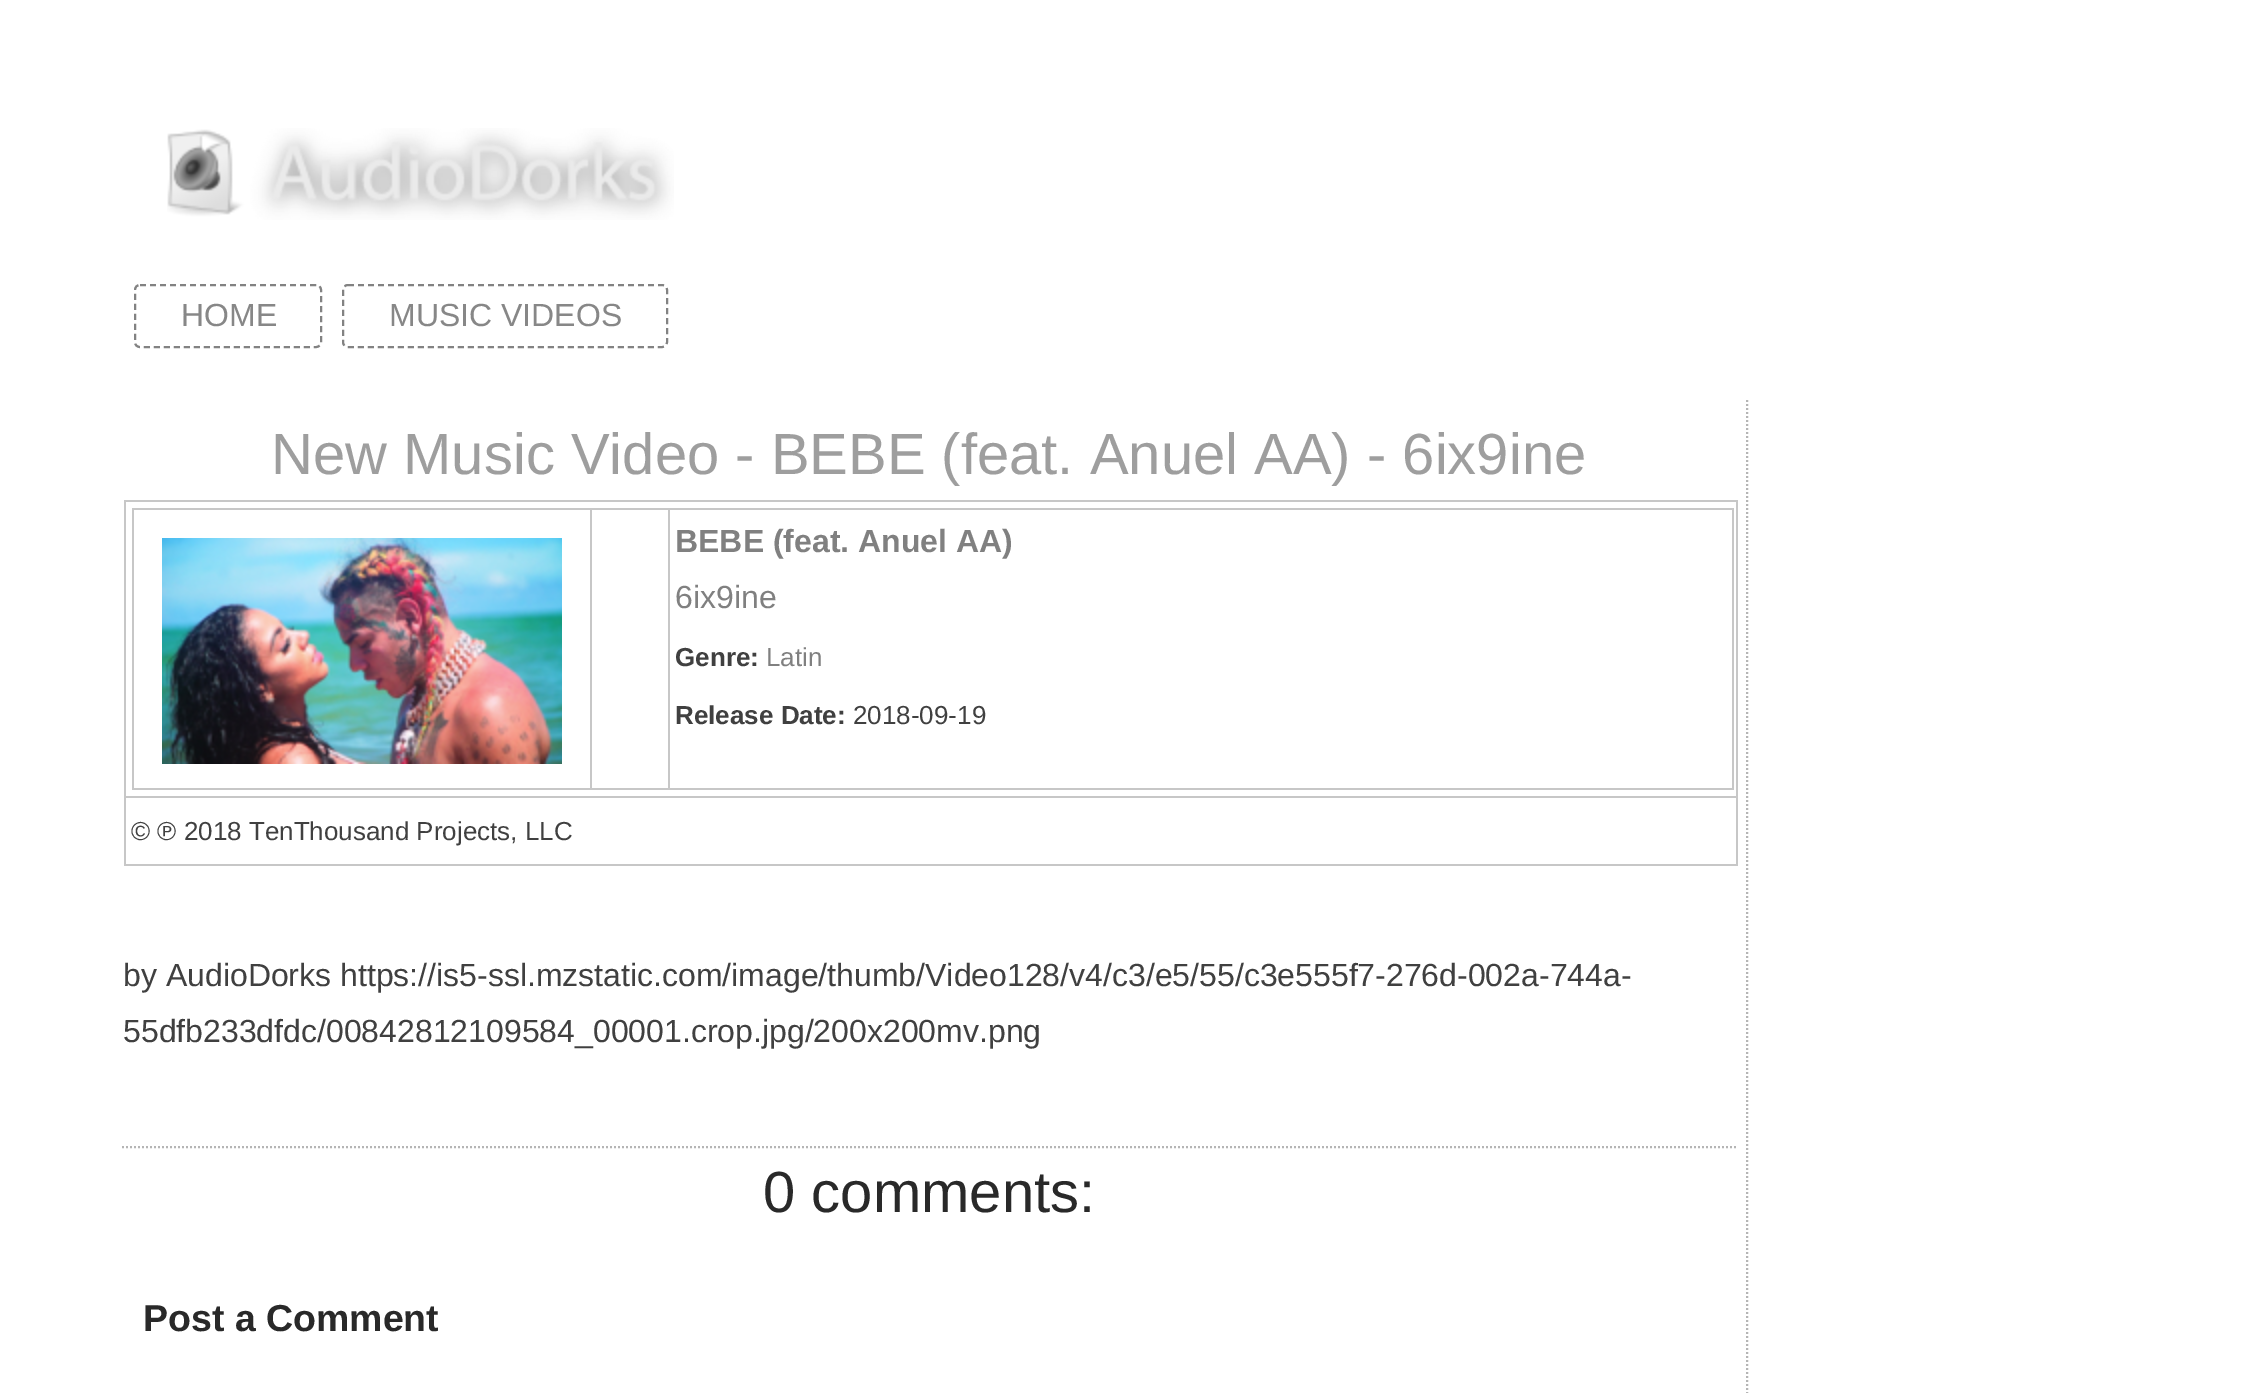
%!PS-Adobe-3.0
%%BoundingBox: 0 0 2258 1393
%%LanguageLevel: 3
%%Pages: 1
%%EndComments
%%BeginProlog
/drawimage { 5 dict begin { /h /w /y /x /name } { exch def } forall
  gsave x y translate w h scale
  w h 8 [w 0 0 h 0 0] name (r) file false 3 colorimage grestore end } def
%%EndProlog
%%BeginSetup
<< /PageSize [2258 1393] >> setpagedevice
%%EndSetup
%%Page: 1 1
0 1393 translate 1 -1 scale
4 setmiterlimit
1 setgray
0 0 2258 1393 rectfill
(images/1.raw) 167 128 507 92 drawimage
0.51 setgray
2 setlinewidth
[6 4] 0 setdash
newpath 140 285 moveto 316 285 lineto 319 285 321 287 321 290 curveto 321 342 lineto 321 345 319 347 316 347 curveto 140 347 lineto 137 347 135 345 135 342 curveto 135 290 lineto 135 287 137 285 140 285 curveto closepath stroke
newpath 348 285 moveto 662 285 lineto 665 285 667 287 667 290 curveto 667 342 lineto 667 345 665 347 662 347 curveto 348 347 lineto 345 347 343 345 343 342 curveto 343 290 lineto 343 287 345 285 348 285 curveto closepath stroke
0.78 setgray
124 500 1614 2 rectfill
124 796 1614 2 rectfill
1736 796 2 70 rectfill
1736 500 2 298 rectfill
124 864 1614 2 rectfill
124 796 2 70 rectfill
124 500 2 298 rectfill
668 508 1066 2 rectfill
1732 508 2 282 rectfill
668 788 1066 2 rectfill
668 508 2 282 rectfill
590 508 80 2 rectfill
590 788 80 2 rectfill
590 508 2 282 rectfill
132 508 460 2 rectfill
132 788 460 2 rectfill
132 508 2 282 rectfill
(images/2.raw) 162 538 400 226 drawimage
0.71 setgray
[2 2] 0 setdash
newpath 122 1147 moveto 1736 1147 lineto stroke
newpath 1747 400 moveto 1747 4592 lineto stroke
/LiberationSans-Regular [32 0 0 -32 0 0] selectfont
0.529 setgray
181 326 moveto (HOME) show
389 326 moveto (MUSIC VIDEOS) show
/LiberationSans-Regular [58 0 0 -58 0 0] selectfont
0.62 setgray
271 474 moveto (New Music Video - BEBE \(feat. Anuel AA\) - 6ix9ine) show
/LiberationSans-Bold [32 0 0 -32 0 0] selectfont
0.502 setgray
675 552 moveto (BEBE \(feat. Anuel AA\)) show
/LiberationSans-Regular [32 0 0 -32 0 0] selectfont
675 608 moveto (6ix9ine) show
/LiberationSans-Bold [26 0 0 -26 0 0] selectfont
0.251 setgray
675 666 moveto (Genre:) show
/LiberationSans-Regular [26 0 0 -26 0 0] selectfont
0.502 setgray
766 666 moveto (Latin) show
/LiberationSans-Bold [26 0 0 -26 0 0] selectfont
0.251 setgray
675 724 moveto (Release Date:) show
/LiberationSans-Regular [26 0 0 -26 0 0] selectfont
853 724 moveto (2018-09-19) show
131 840 moveto (© ℗ 2018 TenThousand Projects, LLC) show
/LiberationSans-Regular [32 0 0 -32 0 0] selectfont
123 986 moveto (by AudioDorks https://is5-ssl.mzstatic.com/image/thumb/Video128/v4/c3/e5/55/c3e555f7-276d-002a-744a-) show
123 1042 moveto (55dfb233dfdc/00842812109584_00001.crop.jpg/200x200mv.png) show
/LiberationSans-Regular [58 0 0 -58 0 0] selectfont
0.161 setgray
763 1212 moveto (0 comments:) show
/LiberationSans-Bold [37.5 0 0 -37.5 0 0] selectfont
143 1331 moveto (Post a Comment) show
showpage
%%EOF
